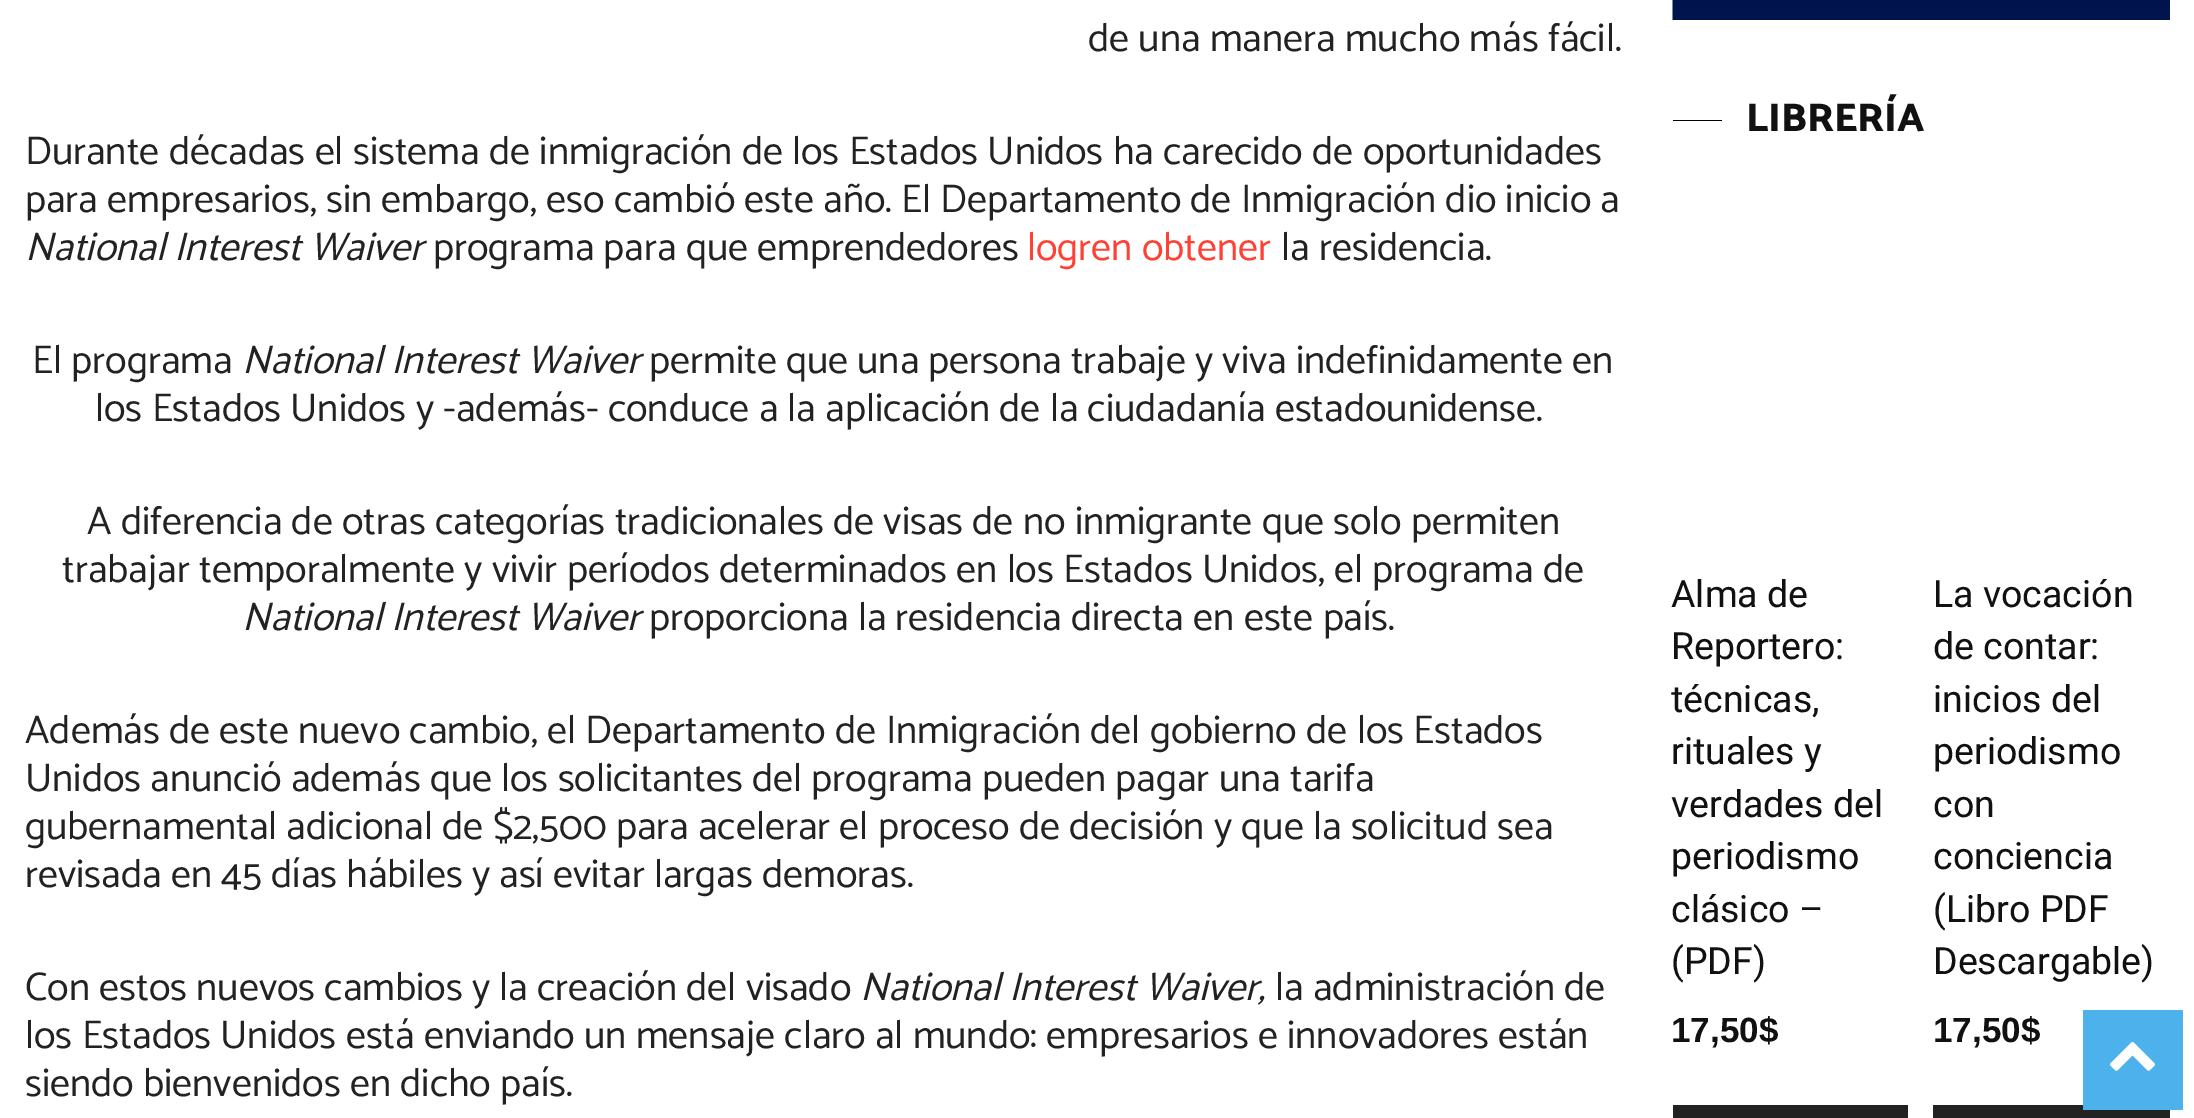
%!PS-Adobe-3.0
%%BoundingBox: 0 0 2194 1118
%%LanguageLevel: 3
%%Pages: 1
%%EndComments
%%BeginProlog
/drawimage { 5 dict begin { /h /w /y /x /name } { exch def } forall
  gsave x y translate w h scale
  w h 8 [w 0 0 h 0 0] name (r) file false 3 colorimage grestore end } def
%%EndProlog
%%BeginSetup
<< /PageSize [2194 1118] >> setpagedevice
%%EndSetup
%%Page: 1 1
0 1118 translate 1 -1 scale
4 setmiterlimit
1 setgray
0 0 2194 1118 rectfill
(images/1.raw) 1672 0 498 20 drawimage
0 setgray
1673 120 49 1 rectfill
0.133 setgray
1673 1105 235 13 rectfill
1933 1105 237 13 rectfill
0.302 0.698 0.925 setrgbcolor
2083 1010 100 100 rectfill
(images/2.raw) 2110 1042 45 29 drawimage
/Catamaran-Regular [40 0 0 -40 0 0] selectfont
0.133 setgray
1088 51 moveto (de una manera mucho más fácil.) show
25 164 moveto (Durante décadas el sistema de inmigración de los Estados Unidos ha carecido de oportunidades) show
25 212 moveto (para empresarios, sin embargo, eso cambió este año. El Departamento de Inmigración dio inicio a) show
/Catamaran-Italic [40 0 0 -40 0 0] selectfont
25 260 moveto (National Interest Waiver) show
/Catamaran-Regular [40 0 0 -40 0 0] selectfont
433 260 moveto (programa para que emprendedores) show
1 0.251 0.2 setrgbcolor
1027 260 moveto (logren obtener) show
0.133 setgray
1281 260 moveto (la residencia.) show
32 373 moveto (El programa) show
/Catamaran-Italic [40 0 0 -40 0 0] selectfont
242 373 moveto (National Interest Waiver) show
/Catamaran-Regular [40 0 0 -40 0 0] selectfont
649 373 moveto (permite que una persona trabaje y viva indefinidamente en) show
95 421 moveto (los Estados Unidos y -además- conduce a la aplicación de la ciudadanía estadounidense.) show
87 534 moveto (A diferencia de otras categorías tradicionales de visas de no inmigrante que solo permiten) show
62 582 moveto (trabajar temporalmente y vivir períodos determinados en los Estados Unidos, el programa de) show
/Catamaran-Italic [40 0 0 -40 0 0] selectfont
242 630 moveto (National Interest Waiver) show
/Catamaran-Regular [40 0 0 -40 0 0] selectfont
649 630 moveto (proporciona la residencia directa en este país.) show
25 743 moveto (Además de este nuevo cambio, el Departamento de Inmigración del gobierno de los Estados) show
25 791 moveto (Unidos anunció además que los solicitantes del programa pueden pagar una tarifa) show
25 839 moveto (gubernamental adicional de $2,500 para acelerar el proceso de decisión y que la solicitud sea) show
25 887 moveto (revisada en 45 días hábiles y así evitar largas demoras.) show
25 1000 moveto (Con estos nuevos cambios y la creación del visado) show
/Catamaran-Italic [40 0 0 -40 0 0] selectfont
860 1000 moveto (National Interest Waiver,) show
/Catamaran-Regular [40 0 0 -40 0 0] selectfont
1275 1000 moveto (la administración de) show
25 1048 moveto (los Estados Unidos está enviando un mensaje claro al mundo: empresarios e innovadores están) show
25 1096 moveto (siendo bienvenidos en dicho país.) show
/Catamaran-ExtraBold [40 0 0 -40 0 0] selectfont
0.067 setgray
1746 131 moveto (LIBRERÍA) show
/Roboto-Regular [37.5 0 0 -37.5 0 0] selectfont
1671 607 moveto (Alma de) show
1671 659 moveto (Reportero:) show
1671 712 moveto (técnicas,) show
1671 764 moveto (rituales y) show
1671 817 moveto (verdades del) show
1671 869 moveto (periodismo) show
1671 922 moveto (clásico –) show
1671 974 moveto (\(PDF\)) show
/LiberationSans-Bold [35 0 0 -35 0 0] selectfont
1671 1042 moveto (17,50$) show
/Roboto-Regular [37.5 0 0 -37.5 0 0] selectfont
1933 607 moveto (La vocación) show
1933 659 moveto (de contar:) show
1933 712 moveto (inicios del) show
1933 764 moveto (periodismo) show
1933 817 moveto (con) show
1933 869 moveto (conciencia) show
1933 922 moveto (\(Libro PDF) show
1933 974 moveto (Descargable\)) show
/LiberationSans-Bold [35 0 0 -35 0 0] selectfont
1933 1042 moveto (17,50$) show
showpage
%%EOF
